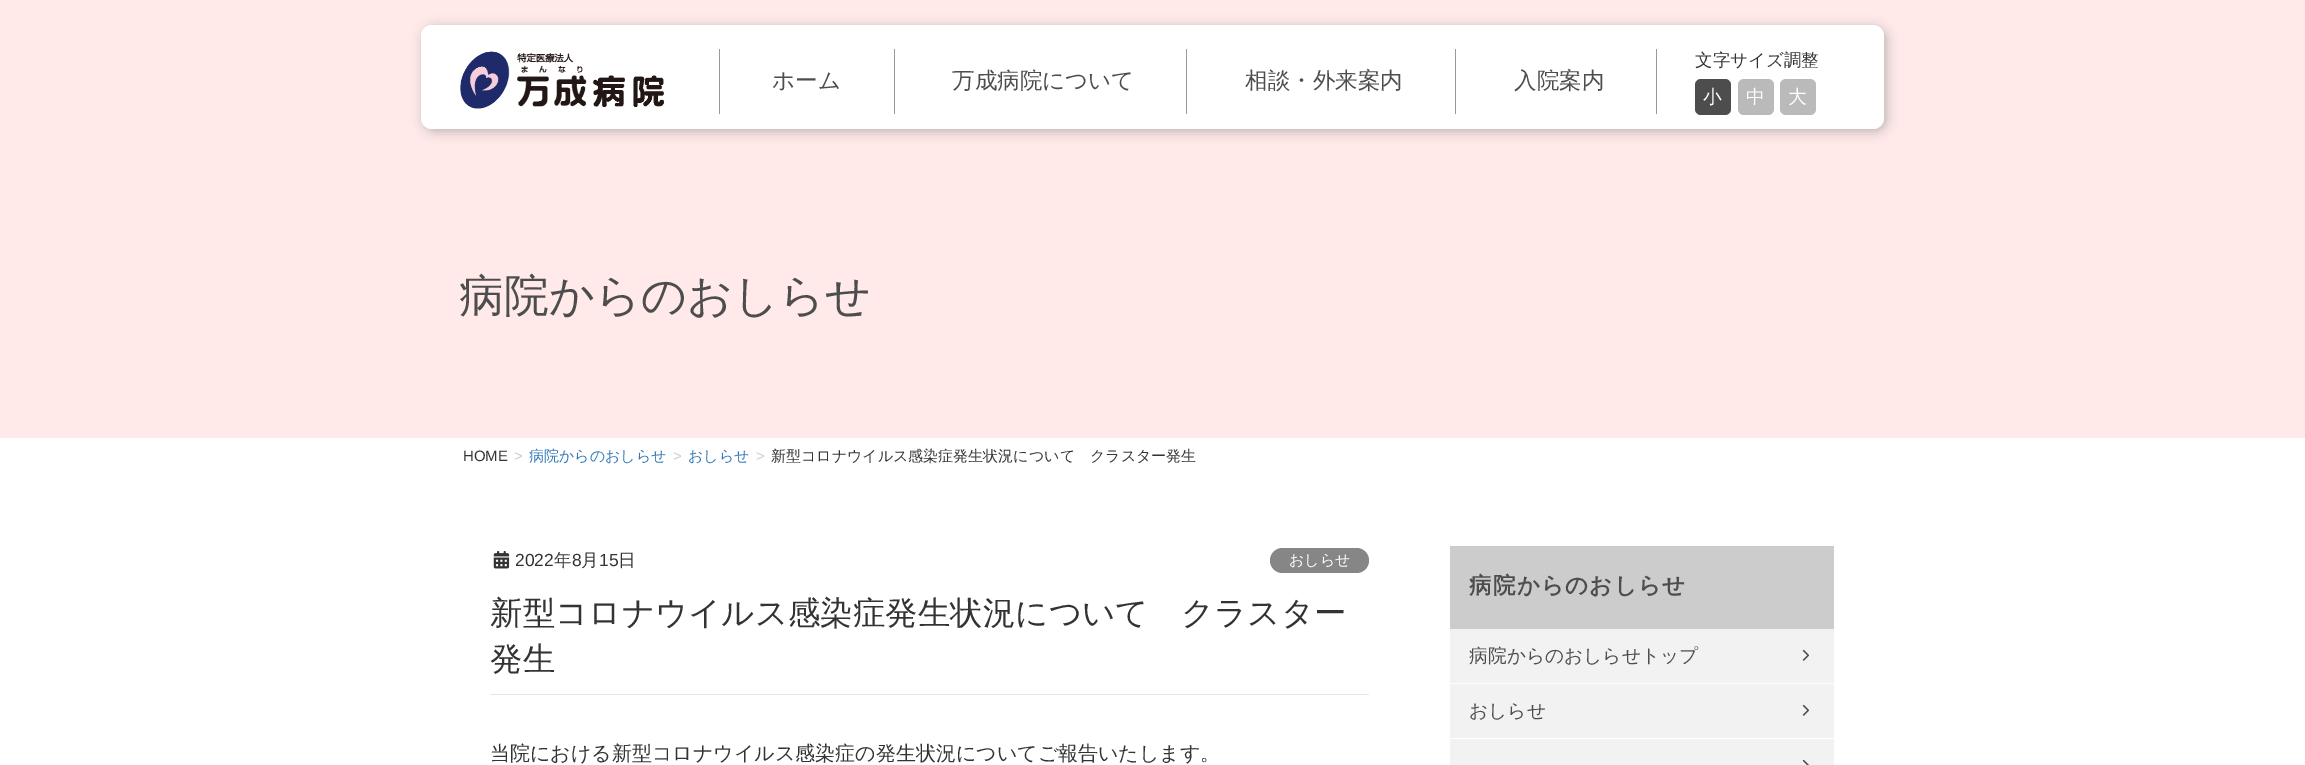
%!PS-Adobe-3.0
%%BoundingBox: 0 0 2305 765
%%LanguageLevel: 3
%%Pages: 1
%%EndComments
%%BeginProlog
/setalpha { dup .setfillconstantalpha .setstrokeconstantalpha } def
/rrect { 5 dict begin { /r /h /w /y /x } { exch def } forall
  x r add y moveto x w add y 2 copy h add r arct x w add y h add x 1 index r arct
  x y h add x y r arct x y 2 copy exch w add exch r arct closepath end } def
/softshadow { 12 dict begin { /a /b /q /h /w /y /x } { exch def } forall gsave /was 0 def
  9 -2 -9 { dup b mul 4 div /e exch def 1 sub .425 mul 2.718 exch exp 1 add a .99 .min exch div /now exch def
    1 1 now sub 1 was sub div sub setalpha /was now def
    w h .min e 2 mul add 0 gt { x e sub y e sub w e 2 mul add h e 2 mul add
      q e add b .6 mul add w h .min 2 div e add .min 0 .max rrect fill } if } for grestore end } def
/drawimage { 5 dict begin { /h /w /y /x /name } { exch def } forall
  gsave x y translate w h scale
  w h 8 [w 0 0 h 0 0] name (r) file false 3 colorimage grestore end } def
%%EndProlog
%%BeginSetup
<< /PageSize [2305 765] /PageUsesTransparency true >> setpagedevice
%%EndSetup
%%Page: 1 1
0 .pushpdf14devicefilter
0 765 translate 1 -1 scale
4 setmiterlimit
1 setgray
0 0 2305 765 rectfill
1 0.914 0.914 setrgbcolor
0 0 2305 438 rectfill
0.525 setgray
424 28 1462 103 11 6 0.6 softshadow
1 setgray
421 25 1463 104 11 rrect fill
(images/1.raw) 460 51 205 58 drawimage
0.6 setgray
894 49 1 65 rectfill
719 49 1 65 rectfill
1186 49 1 65 rectfill
1455 49 1 65 rectfill
1656 49 1 65 rectfill
0.302 setgray
1695 79 36 36 6 rrect fill
0.729 setgray
1738 79 36 36 6 rrect fill
1780 79 36 36 6 rrect fill
0.898 setgray
490 694 879 1 rectfill
(images/2.raw) 493 550 17 19 drawimage
0.525 setgray
1270 548 99 25 12.5 rrect fill
0.8 setgray
1450 546 384 83 rectfill
0.949 setgray
1450 629 384 54 rectfill
(images/3.raw) 1802 649 7 12 drawimage
1450 684 384 54 rectfill
(images/3.raw) 1802 704 7 12 drawimage
1450 739 384 26 rectfill
(images/4.raw) 1802 759 7 6 drawimage
/WenQuanYiZenHei-Medium [22.5 0 0 -22.5 0 0] selectfont
0.302 setgray
772 88 moveto (ホーム) show
952 88 moveto (万成病院について) show
1245 88 moveto (相談・外来案内) show
1514 88 moveto (入院案内) show
/WenQuanYiZenHei-Medium [17.5 0 0 -17.5 0 0] selectfont
0.2 setgray
1695 66 moveto (文字サイズ調整) show
/WenQuanYiZenHei-Medium [18.75 0 0 -18.75 0 0] selectfont
1 setgray
1703 103 moveto (小) show
1746 103 moveto (中) show
1788 103 moveto (大) show
/WenQuanYiZenHei-Medium [45 0 0 -45 0 0] selectfont
0.302 setgray
459 311 moveto (病院からのおしらせ) show
/LiberationSans-Regular [15 0 0 -15 0 0] selectfont
0.2 setgray
463 461 moveto (HOME) show
0.8 setgray
514 461 moveto (>) show
/WenQuanYiZenHei-Medium [15 0 0 -15 0 0] selectfont
0.2 0.478 0.718 setrgbcolor
529 461 moveto (病院からのおしらせ) show
/LiberationSans-Regular [15 0 0 -15 0 0] selectfont
0.8 setgray
673 461 moveto (>) show
/WenQuanYiZenHei-Medium [15 0 0 -15 0 0] selectfont
0.2 0.478 0.718 setrgbcolor
688 461 moveto (おしらせ) show
/LiberationSans-Regular [15 0 0 -15 0 0] selectfont
0.8 setgray
756 461 moveto (>) show
/WenQuanYiZenHei-Medium [15 0 0 -15 0 0] selectfont
0.2 setgray
771 461 moveto (新型コロナウイルス感染症発生状況について　クラスター発生) show
/LiberationSans-Regular [17.5 0 0 -17.5 0 0] selectfont
515 566 moveto (2022) show
/WenQuanYiZenHei-Medium [17.5 0 0 -17.5 0 0] selectfont
554 566 moveto (年) show
/LiberationSans-Regular [17.5 0 0 -17.5 0 0] selectfont
572 566 moveto (8) show
/WenQuanYiZenHei-Medium [17.5 0 0 -17.5 0 0] selectfont
581 566 moveto (月) show
/LiberationSans-Regular [17.5 0 0 -17.5 0 0] selectfont
599 566 moveto (15) show
/WenQuanYiZenHei-Medium [17.5 0 0 -17.5 0 0] selectfont
618 566 moveto (日) show
/WenQuanYiZenHei-Medium [15 0 0 -15 0 0] selectfont
1 setgray
1289 565 moveto (おしらせ) show
/WenQuanYiZenHei-Medium [32.5 0 0 -32.5 0 0] selectfont
0.2 setgray
490 624 moveto (新型コロナウイルス感染症発生状況について　クラスター) show
490 670 moveto (発生) show
/WenQuanYiZenHei-Medium [20 0 0 -20 0 0] selectfont
490 760 moveto (当院における新型コロナウイルス感染症の発生状況についてご報告いたします。) show
/WenQuanYiZenHei-Bold [22.5 0 0 -22.5 0 0] selectfont
0.302 setgray
1469 593 moveto 1.25 0 (病院からのおしらせ) ashow
/WenQuanYiZenHei-Medium [18.75 0 0 -18.75 0 0] selectfont
1469 662 moveto (病院からのおしらせトップ) show
1469 717 moveto (おしらせ) show
.poppdf14devicefilter showpage
%%EOF
